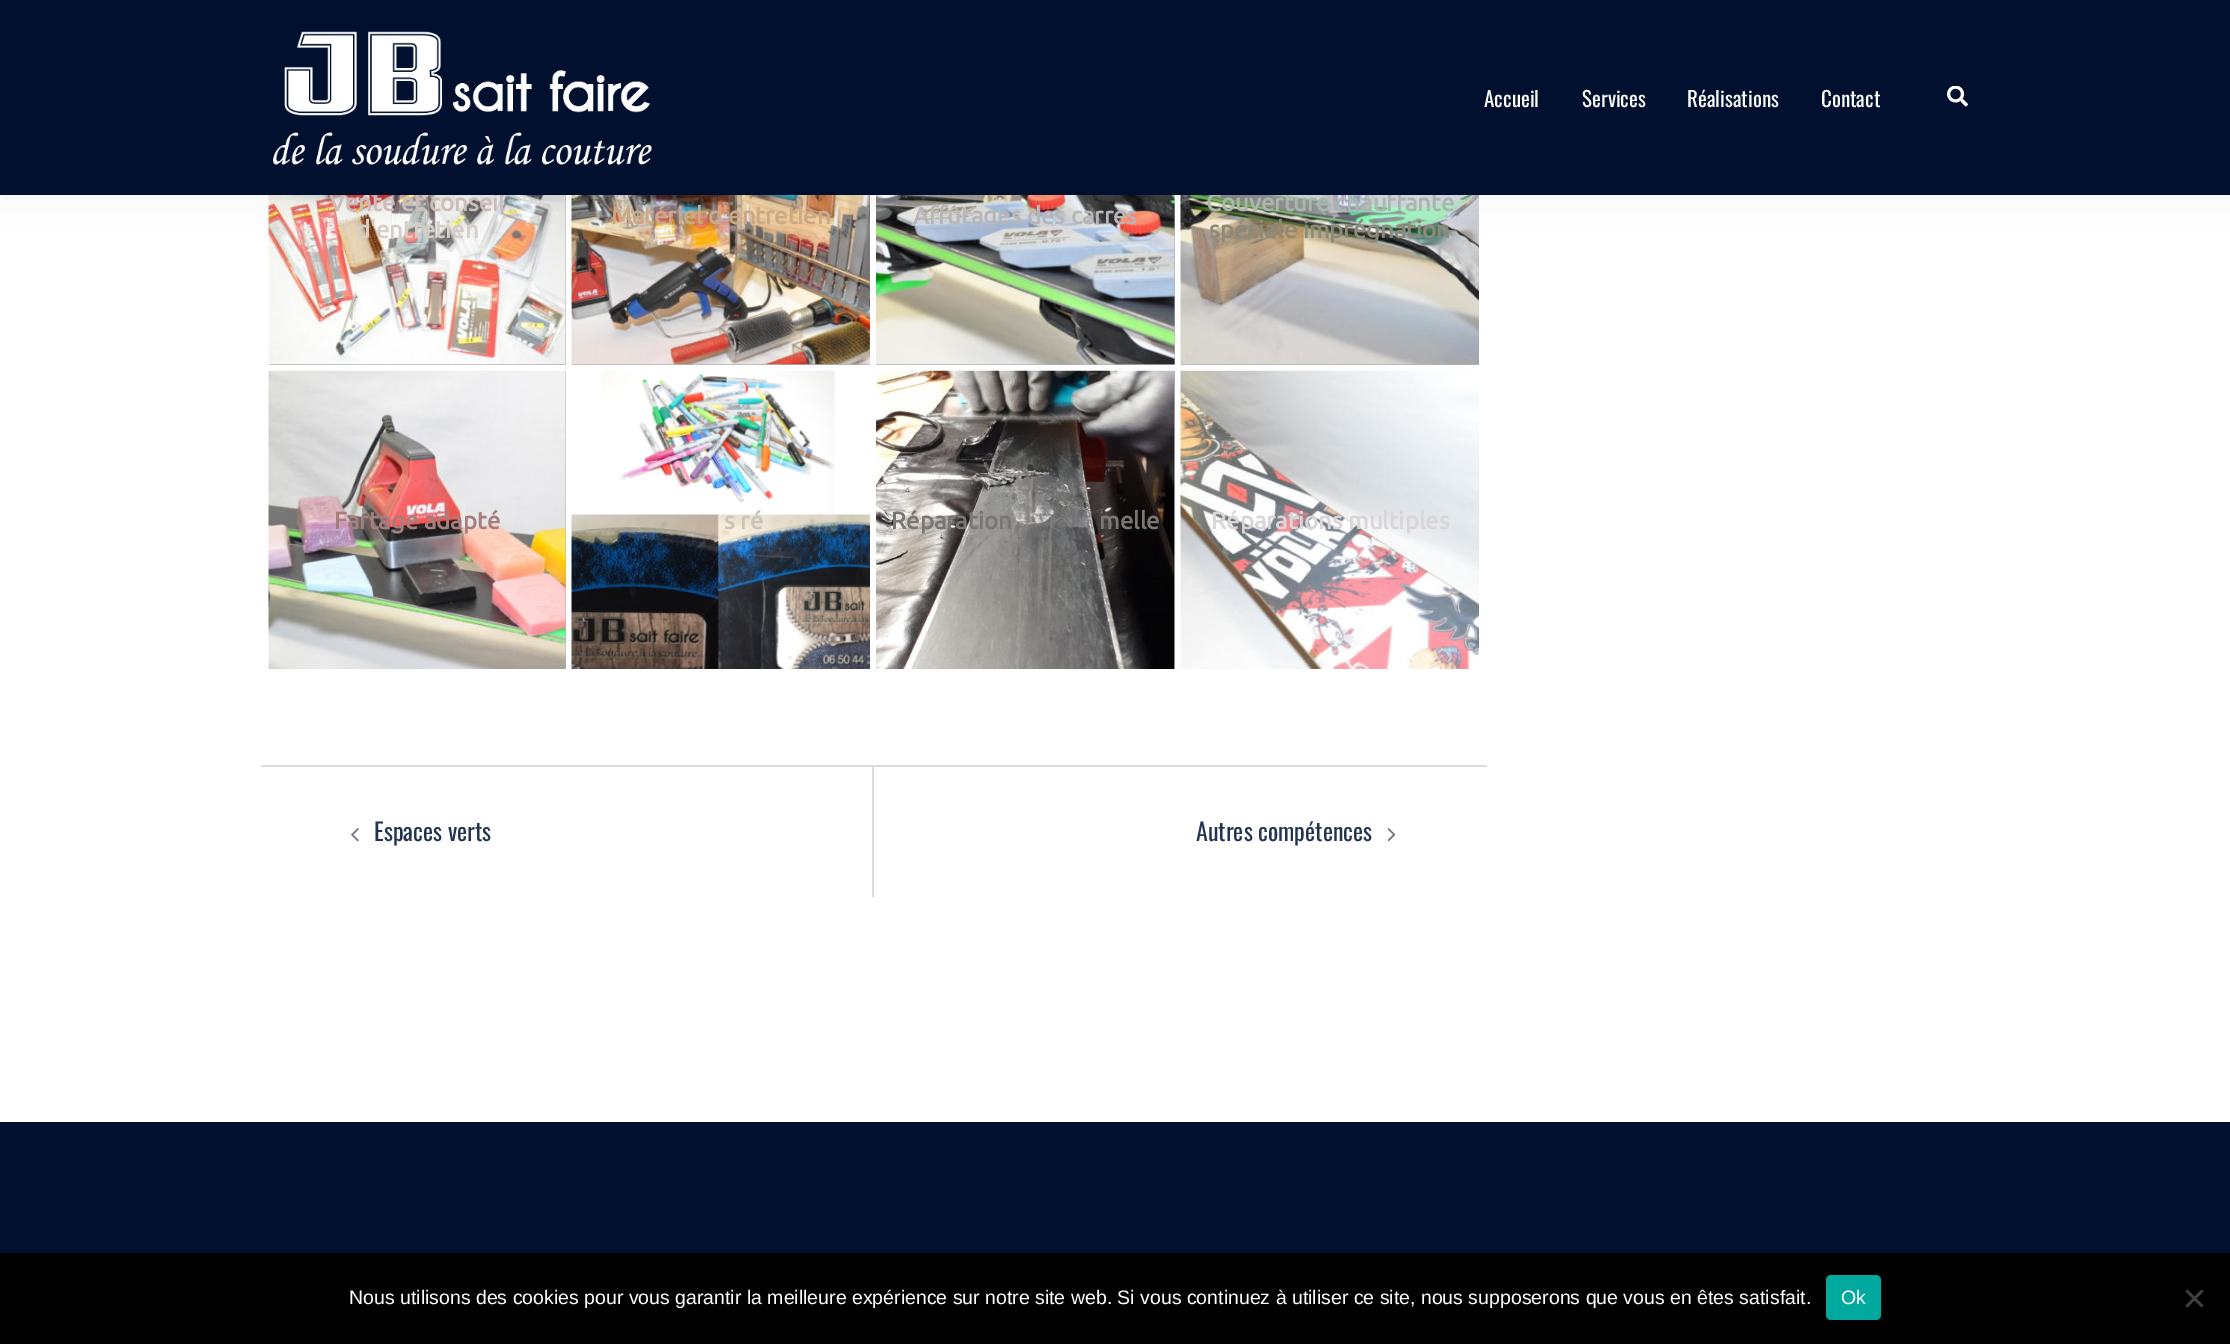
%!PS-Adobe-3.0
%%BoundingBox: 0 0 2230 1344
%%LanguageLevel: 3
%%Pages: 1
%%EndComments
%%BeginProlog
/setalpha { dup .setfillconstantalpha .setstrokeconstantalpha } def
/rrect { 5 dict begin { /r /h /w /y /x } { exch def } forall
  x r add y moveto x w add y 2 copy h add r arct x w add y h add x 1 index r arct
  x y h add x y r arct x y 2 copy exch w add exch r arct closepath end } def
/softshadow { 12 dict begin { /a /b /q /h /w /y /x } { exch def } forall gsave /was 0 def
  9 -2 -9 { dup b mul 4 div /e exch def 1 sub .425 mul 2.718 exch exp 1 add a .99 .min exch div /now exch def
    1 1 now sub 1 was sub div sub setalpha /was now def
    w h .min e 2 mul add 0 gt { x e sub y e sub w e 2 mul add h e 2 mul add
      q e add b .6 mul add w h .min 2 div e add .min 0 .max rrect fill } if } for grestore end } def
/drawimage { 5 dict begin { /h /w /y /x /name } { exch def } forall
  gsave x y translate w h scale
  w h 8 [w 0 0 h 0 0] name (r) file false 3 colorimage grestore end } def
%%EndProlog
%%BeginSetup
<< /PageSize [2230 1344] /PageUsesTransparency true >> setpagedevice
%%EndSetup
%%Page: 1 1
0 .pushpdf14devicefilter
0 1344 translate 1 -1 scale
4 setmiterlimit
1 setgray
0 0 2230 1344 rectfill
0.702 setgray
269 195 297 170 rectfill
(images/3.raw) 268 195 298 170 drawimage
572 364 298 1 rectfill
(images/4.raw) 571 195 299 170 drawimage
876 195 299 170 rectfill
(images/5.raw) 876 195 299 170 drawimage
1181 364 298 1 rectfill
(images/6.raw) 1180 195 299 170 drawimage
0 setgray
0 0 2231 195 0 22.5 0.05 softshadow
0.702 setgray
565 371 1 298 rectfill
(images/7.raw) 268 370 298 299 drawimage
(images/8.raw) 571 370 299 299 drawimage
1174 371 1 298 rectfill
(images/9.raw) 876 370 299 299 drawimage
(images/10.raw) 1180 370 299 299 drawimage
0.859 setgray
261 765 1226 2 rectfill
872 767 2 130 rectfill
(images/11.raw) 351 828 8 14 drawimage
(images/12.raw) 1388 828 8 14 drawimage
0 0.063 0.18 setrgbcolor
0 1122 2230 131 rectfill
0 setgray
0 1253 2230 91 rectfill
0 0.663 0.616 setrgbcolor
1826 1275 55 45 5 rrect fill
0.251 setgray
newpath 2201.5 1289.5 moveto 2203.5 1291.5 lineto 2187.5 1307.5 lineto 2185.5 1305.5 lineto closepath fill
newpath 2185.5 1291.5 moveto 2187.5 1289.5 lineto 2203.5 1305.5 lineto 2201.5 1307.5 lineto closepath fill
/Ubuntu-Bold [24 0 0 -24 0 0] selectfont
0.804 0.737 0.722 setrgbcolor
329 211 moveto (Vente et conseil) show
0.839 0.808 0.776 setrgbcolor
356 238 moveto (d'entretien) show
0.796 0.659 0.529 setrgbcolor
611 224 moveto (Matériel d'entretien) show
0.722 0.71 0.725 setrgbcolor
913 224 moveto (Affûtages des carres) show
0.655 0.718 0.678 setrgbcolor
1206 211 moveto (Couverture chauffante) show
0 0.063 0.18 setrgbcolor
0 0 2230 195 rectfill
(images/2.raw) 1947 86 21 21 drawimage
/Oswald-Regular [21 0 0 -21 0 0] selectfont
1 setgray
1821 107 moveto (Contact) show
1687 107 moveto (Réalisations) show
1582 107 moveto (Services) show
1484 107 moveto (Accueil) show
(images/1.raw) 273 31 379 134 drawimage
/Ubuntu-Bold [24 0 0 -24 0 0] selectfont
0.545 0.545 0.471 setrgbcolor
1209 238 moveto (spéciale imprégnation) show
0.655 0.49 0.49 setrgbcolor
334 529 moveto (Fartage adapté) show
0.788 0.769 0.722 setrgbcolor
724 529 moveto (s ré) show
0.475 0.463 0.459 setrgbcolor
891 529 moveto (Réparation) show
1099 529 moveto (melle) show
0.851 0.835 0.847 setrgbcolor
1211 529 moveto (Réparations multiples) show
/Oswald-Regular [24 0 0 -24 0 0] selectfont
0.137 0.204 0.322 setrgbcolor
374 841 moveto (Espaces verts) show
1196 841 moveto (Autres compétences) show
/LiberationSans-Regular [19.5 0 0 -19.5 0 0] selectfont
1 setgray
349 1304 moveto (Nous utilisons des cookies pour vous garantir la meilleure expérience sur notre site web. Si vous continuez à utiliser ce site, nous supposerons que vous en êtes satisfait.) show
1841 1304 moveto (Ok) show
.poppdf14devicefilter showpage
%%EOF
